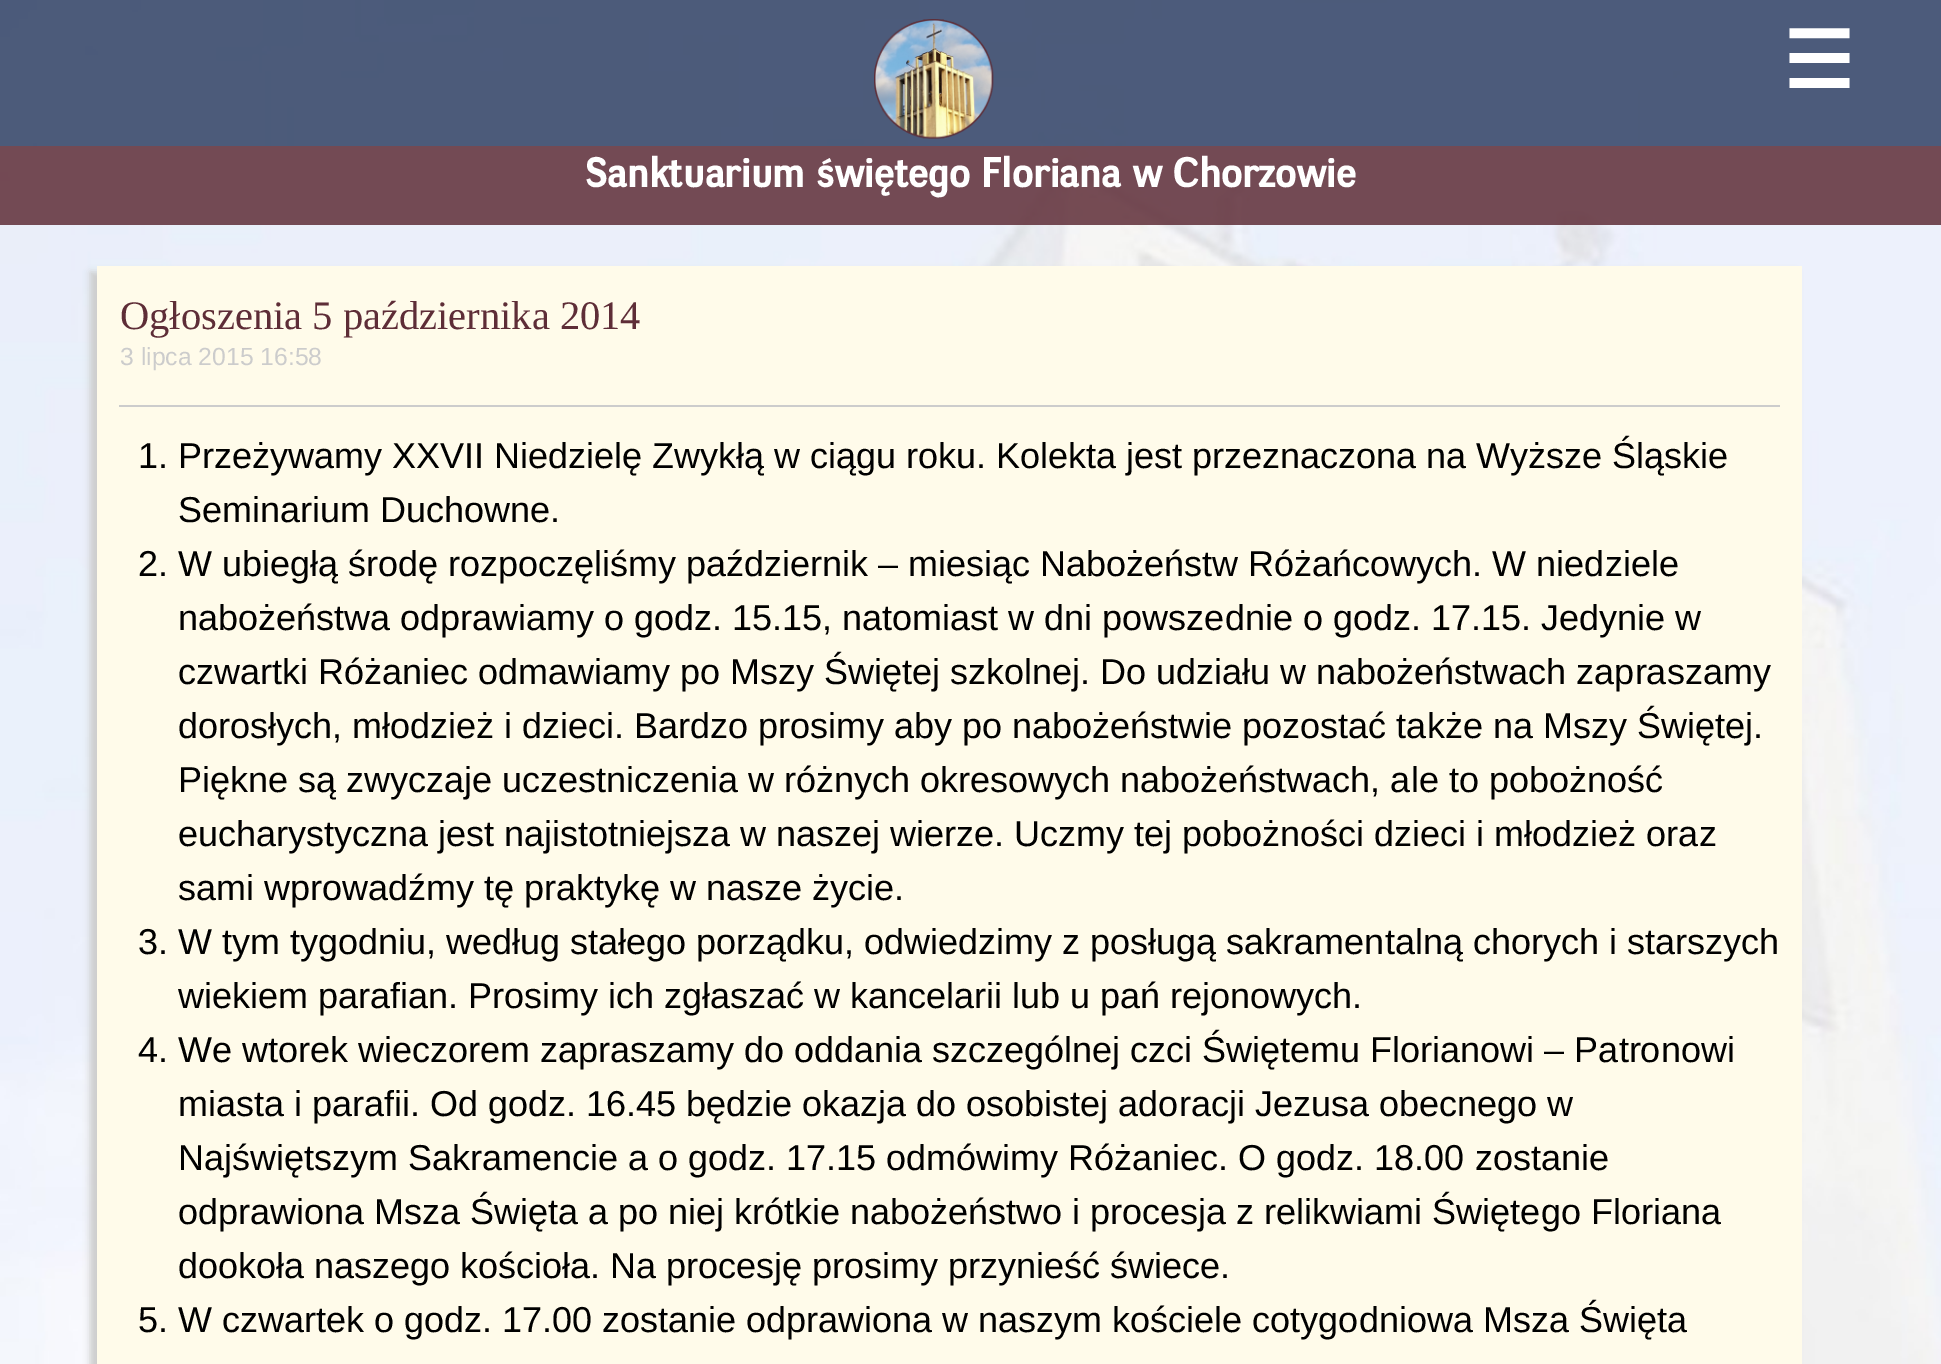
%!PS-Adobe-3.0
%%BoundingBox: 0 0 1941 1364
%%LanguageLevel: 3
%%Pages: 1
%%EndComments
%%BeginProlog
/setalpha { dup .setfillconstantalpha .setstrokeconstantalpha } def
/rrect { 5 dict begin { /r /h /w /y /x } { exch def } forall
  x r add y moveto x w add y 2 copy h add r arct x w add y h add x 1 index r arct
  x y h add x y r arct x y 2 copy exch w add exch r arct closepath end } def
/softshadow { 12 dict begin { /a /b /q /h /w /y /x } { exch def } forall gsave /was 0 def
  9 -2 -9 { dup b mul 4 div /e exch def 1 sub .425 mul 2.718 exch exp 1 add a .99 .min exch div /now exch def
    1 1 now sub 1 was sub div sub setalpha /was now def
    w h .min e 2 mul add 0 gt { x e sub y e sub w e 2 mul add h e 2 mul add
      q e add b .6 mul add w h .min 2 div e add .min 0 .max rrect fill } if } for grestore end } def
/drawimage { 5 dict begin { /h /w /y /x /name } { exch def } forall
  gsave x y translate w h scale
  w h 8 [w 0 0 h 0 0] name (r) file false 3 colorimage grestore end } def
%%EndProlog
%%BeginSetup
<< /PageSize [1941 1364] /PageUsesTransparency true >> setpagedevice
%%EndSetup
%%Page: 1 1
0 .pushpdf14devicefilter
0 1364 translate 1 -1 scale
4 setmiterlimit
1 setgray
0 0 1941 1364 rectfill
(images/1.raw) 0 0 1941 1364 drawimage
0.85 setalpha
0.188 0.255 0.392 setrgbcolor
0 0 1941 146 rectfill
1 setalpha
(images/2.raw) 874 19 120 120 drawimage
0.85 setalpha
0.369 0.176 0.216 setrgbcolor
0 146 1941 79 rectfill
1 setalpha
0.8 setgray
90 272 1706 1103 0 3.5 1 softshadow
1 0.984 0.918 setrgbcolor
97 266 1705 1098 rectfill
0.8 setgray
119 405 1661 2 rectfill
/DejaVuSans-Bold [79 0 0 -79 0 0] selectfont
1 setgray
1783 88 moveto (☰) show
/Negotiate-Bold [40.5 0 0 -40.5 0 0] selectfont
585 187 moveto (Sanktuarium świętego Floriana w Chorzowie) show
/LiberationSerif-Regular [40.5 0 0 -40.5 0 0] selectfont
0.369 0.176 0.216 setrgbcolor
120 329 moveto (Ogłoszenia 5 października 2014) show
/LiberationSans-Regular [24.75 0 0 -24.75 0 0] selectfont
0.8 setgray
120 365 moveto (3 lipca 2015 16:58) show
/LiberationSans-Regular [36 0 0 -36 0 0] selectfont
0 setgray
138 468 moveto (1. Przeżywamy XXVII Niedzielę Zwykłą w ciągu roku. Kolekta jest przeznaczona na Wyższe Śląskie) show
178 522 moveto (Seminarium Duchowne.) show
138 576 moveto (2. W ubiegłą środę rozpoczęliśmy październik – miesiąc Nabożeństw Różańcowych. W niedziele) show
178 630 moveto (nabożeństwa odprawiamy o godz. 15.15, natomiast w dni powszednie o godz. 17.15. Jedynie w) show
178 684 moveto (czwartki Różaniec odmawiamy po Mszy Świętej szkolnej. Do udziału w nabożeństwach zapraszamy) show
178 738 moveto (dorosłych, młodzież i dzieci. Bardzo prosimy aby po nabożeństwie pozostać także na Mszy Świętej.) show
178 792 moveto (Piękne są zwyczaje uczestniczenia w różnych okresowych nabożeństwach, ale to pobożność) show
178 846 moveto (eucharystyczna jest najistotniejsza w naszej wierze. Uczmy tej pobożności dzieci i młodzież oraz) show
178 900 moveto (sami wprowadźmy tę praktykę w nasze życie.) show
138 954 moveto (3. W tym tygodniu, według stałego porządku, odwiedzimy z posługą sakramentalną chorych i starszych) show
178 1008 moveto (wiekiem parafian. Prosimy ich zgłaszać w kancelarii lub u pań rejonowych.) show
138 1062 moveto (4. We wtorek wieczorem zapraszamy do oddania szczególnej czci Świętemu Florianowi – Patronowi) show
178 1116 moveto (miasta i parafii. Od godz. 16.45 będzie okazja do osobistej adoracji Jezusa obecnego w) show
178 1170 moveto (Najświętszym Sakramencie a o godz. 17.15 odmówimy Różaniec. O godz. 18.00 zostanie) show
178 1224 moveto (odprawiona Msza Święta a po niej krótkie nabożeństwo i procesja z relikwiami Świętego Floriana) show
178 1278 moveto (dookoła naszego kościoła. Na procesję prosimy przynieść świece.) show
138 1332 moveto (5. W czwartek o godz. 17.00 zostanie odprawiona w naszym kościele cotygodniowa Msza Święta) show
.poppdf14devicefilter showpage
%%EOF
